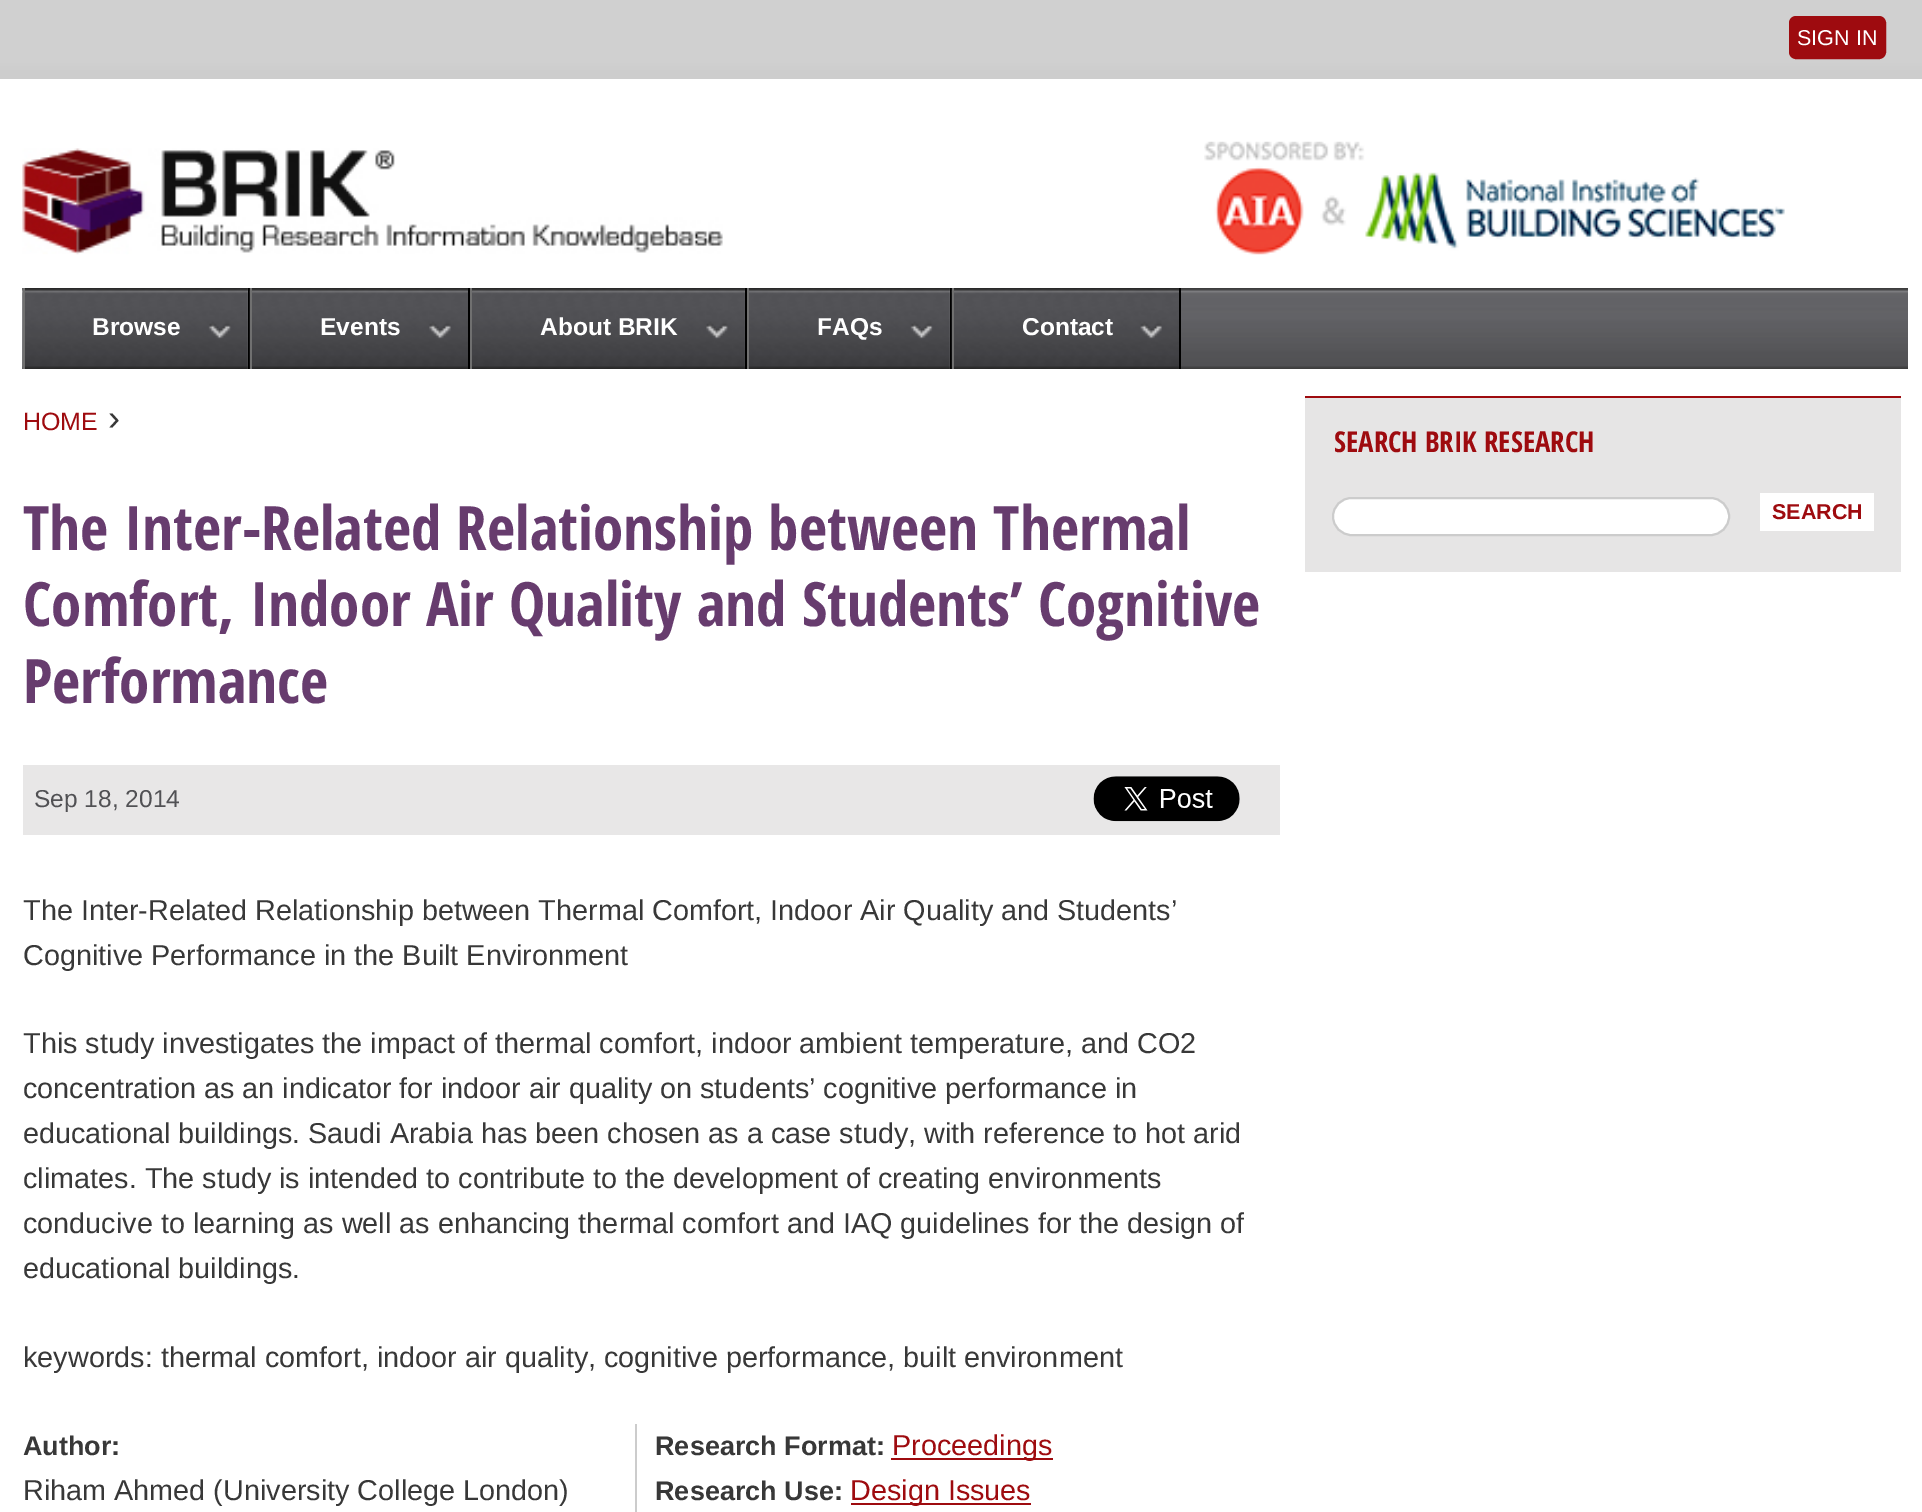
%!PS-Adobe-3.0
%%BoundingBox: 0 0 1922 1512
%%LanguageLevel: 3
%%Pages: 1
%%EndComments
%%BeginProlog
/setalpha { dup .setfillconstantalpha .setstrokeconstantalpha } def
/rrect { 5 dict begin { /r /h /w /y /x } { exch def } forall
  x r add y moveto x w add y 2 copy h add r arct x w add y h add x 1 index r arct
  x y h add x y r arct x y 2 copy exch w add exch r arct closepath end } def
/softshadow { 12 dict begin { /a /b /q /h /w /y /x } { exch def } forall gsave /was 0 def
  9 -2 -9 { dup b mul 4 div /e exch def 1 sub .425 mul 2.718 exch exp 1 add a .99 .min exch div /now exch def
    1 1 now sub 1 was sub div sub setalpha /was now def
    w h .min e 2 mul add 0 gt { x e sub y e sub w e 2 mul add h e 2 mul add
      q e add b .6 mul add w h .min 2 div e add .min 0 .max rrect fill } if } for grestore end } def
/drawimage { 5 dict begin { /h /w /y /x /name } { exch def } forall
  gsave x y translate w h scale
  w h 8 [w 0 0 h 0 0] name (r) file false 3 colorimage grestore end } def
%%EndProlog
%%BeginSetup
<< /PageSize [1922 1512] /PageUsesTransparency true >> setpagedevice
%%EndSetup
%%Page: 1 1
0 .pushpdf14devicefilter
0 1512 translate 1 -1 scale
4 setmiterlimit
1 setgray
0 0 1922 1512 rectfill
gsave newpath 0 0 moveto 1922 0 lineto 1922 79 lineto 0 79 lineto closepath clip newpath
<< /ShadingType 2 /ColorSpace /DeviceRGB /Coords [962 0 962 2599] /Extend [true true] /Function << /FunctionType 2 /Domain [0 1] /C0 [0.816 0.816 0.816] /C1 [0.898 0.898 0.898] /N 1 >> >> shfill grestore
0.8 setgray
-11 68 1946 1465 0 7 1 softshadow
1 setgray
0 79 1922 1433 rectfill
0.62 0.043 0.059 setrgbcolor
1790 17 95 41 6 rrect gsave fill grestore
2 setlinewidth
stroke
(images/1.raw) 22 148 701 107 drawimage
(images/2.raw) 1204 141 581 114 drawimage
(images/3.raw) 22 288 1886 81 drawimage
(images/4.raw) 22 288 226 81 drawimage
0 setgray
248 288 2 81 rectfill
0.439 setgray
23 288 2 81 rectfill
(images/5.raw) 249 288 219 81 drawimage
0 setgray
468 288 2 81 rectfill
0.439 setgray
250 288 2 81 rectfill
(images/6.raw) 472 288 273 81 drawimage
0 setgray
745 288 2 81 rectfill
0.439 setgray
470 288 2 81 rectfill
(images/7.raw) 749 288 201 81 drawimage
0 setgray
950 288 2 81 rectfill
0.439 setgray
747 288 2 81 rectfill
(images/8.raw) 951 288 228 81 drawimage
0 setgray
1179 288 2 81 rectfill
0.439 setgray
952 288 2 81 rectfill
0.91 0.906 0.906 setrgbcolor
23 765 1257 70 rectfill
(images/9.raw) 1093 776 147 46 drawimage
0.8 setgray
635 1424 2 88 rectfill
0.62 0.043 0.059 setrgbcolor
891 1458 162 2 rectfill
851 1503 180 2 rectfill
0.902 0.898 0.898 setrgbcolor
1305 398 596 174 rectfill
0.62 0.043 0.059 setrgbcolor
1305 396 596 2 rectfill
1 setgray
1333 498 396 37 18.5 rrect gsave fill grestore
0.8 setgray
stroke
1 setgray
1760 493 114 38 rectfill
/LiberationSans-Regular [21.5 0 0 -21.5 0 0] selectfont
1797 45 moveto (SIGN IN) show
/LiberationSans-Bold [24.5 0 0 -24.5 0 0] selectfont
92 335 moveto (Browse) show
320 335 moveto (Events) show
540 335 moveto (About BRIK) show
817 335 moveto (FAQs) show
1022 335 moveto (Contact) show
/LiberationSans-Regular [25 0 0 -25 0 0] selectfont
0.62 0.043 0.059 setrgbcolor
23 430 moveto (HOME) show
/LiberationSans-Regular [36 0 0 -36 0 0] selectfont
0.22 setgray
108 430 moveto (›) show
/OpenSansCondensed-Bold [61.2 0 0 -61.2 0 0] selectfont
0.404 0.235 0.431 setrgbcolor
23 550 moveto (The Inter-Related Relationship between Thermal) show
23 626 moveto (Comfort, Indoor Air Quality and Students’ Cognitive) show
23 703 moveto (Performance) show
/LiberationSans-Regular [24.5 0 0 -24.5 0 0] selectfont
0.318 0.318 0.329 setrgbcolor
34 807 moveto (Sep 18, 2014) show
/LiberationSans-Regular [28.8 0 0 -28.8 0 0] selectfont
0.22 setgray
23 920 moveto (The Inter-Related Relationship between Thermal Comfort, Indoor Air Quality and Students’) show
23 965 moveto (Cognitive Performance in the Built Environment) show
23 1053 moveto (This study investigates the impact of thermal comfort, indoor ambient temperature, and CO2) show
23 1098 moveto (concentration as an indicator for indoor air quality on students’ cognitive performance in) show
23 1143 moveto (educational buildings. Saudi Arabia has been chosen as a case study, with reference to hot arid) show
23 1188 moveto (climates. The study is intended to contribute to the development of creating environments) show
23 1233 moveto (conducive to learning as well as enhancing thermal comfort and IAQ guidelines for the design of) show
23 1278 moveto (educational buildings.) show
23 1367 moveto (keywords: thermal comfort, indoor air quality, cognitive performance, built environment) show
/LiberationSans-Bold [27 0 0 -27 0 0] selectfont
23 1455 moveto (Author:) show
/LiberationSans-Regular [28.8 0 0 -28.8 0 0] selectfont
23 1500 moveto (Riham Ahmed \(University College London\)) show
/LiberationSans-Bold [27 0 0 -27 0 0] selectfont
655 1455 moveto (Research Format:) show
/LiberationSans-Regular [28.8 0 0 -28.8 0 0] selectfont
0.62 0.043 0.059 setrgbcolor
892 1455 moveto (Proceedings) show
/LiberationSans-Bold [27 0 0 -27 0 0] selectfont
0.22 setgray
655 1500 moveto (Research Use:) show
/LiberationSans-Regular [28.8 0 0 -28.8 0 0] selectfont
0.62 0.043 0.059 setrgbcolor
850 1500 moveto (Design Issues) show
/OpenSansCondensed-Bold [28.8 0 0 -28.8 0 0] selectfont
1334 452 moveto (SEARCH BRIK RESEARCH) show
/LiberationSans-Bold [21.5 0 0 -21.5 0 0] selectfont
1772 519 moveto (SEARCH) show
.poppdf14devicefilter showpage
%%EOF
